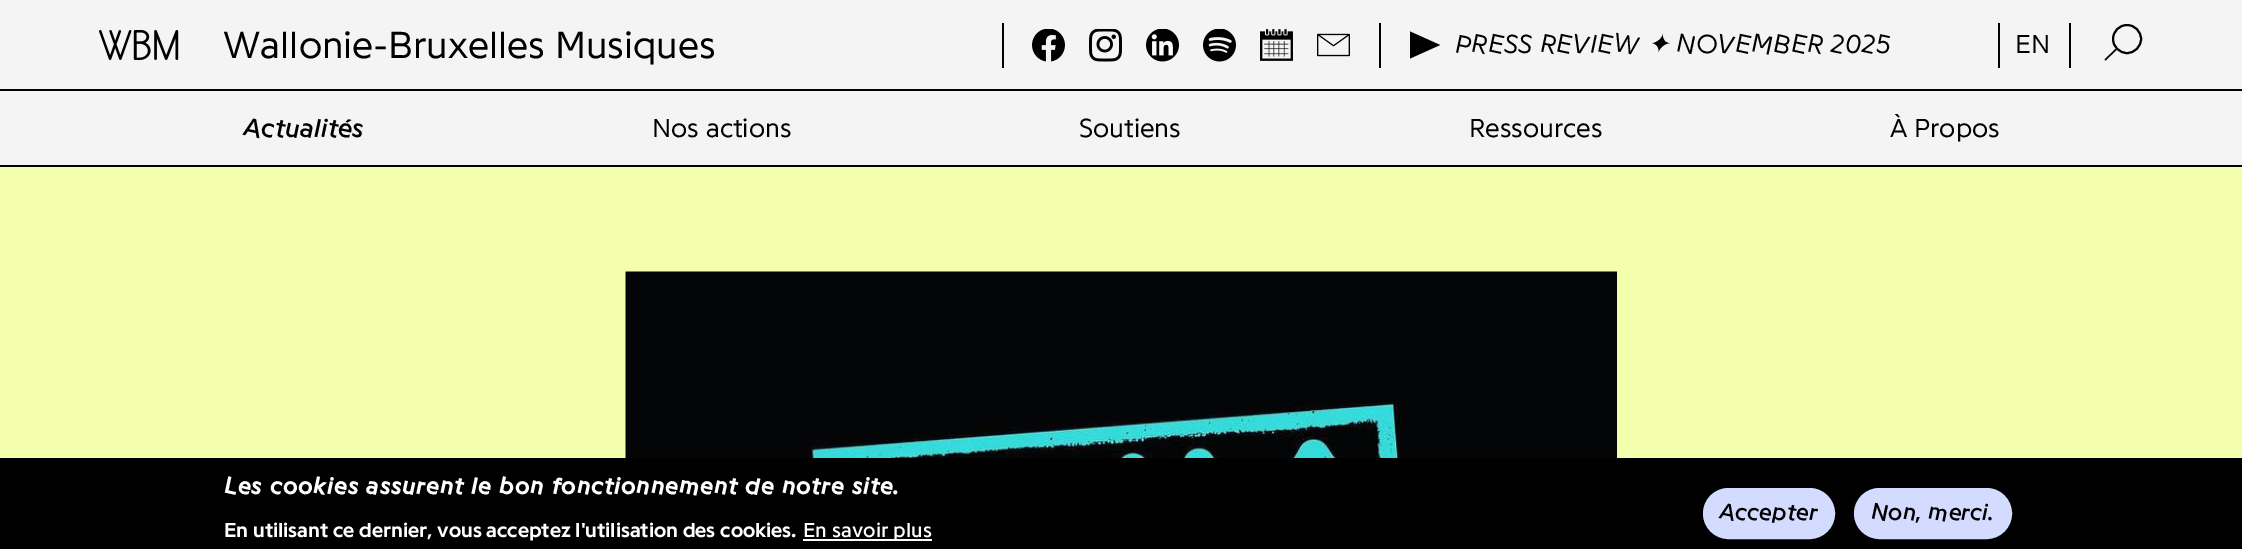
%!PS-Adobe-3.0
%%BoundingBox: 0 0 2242 549
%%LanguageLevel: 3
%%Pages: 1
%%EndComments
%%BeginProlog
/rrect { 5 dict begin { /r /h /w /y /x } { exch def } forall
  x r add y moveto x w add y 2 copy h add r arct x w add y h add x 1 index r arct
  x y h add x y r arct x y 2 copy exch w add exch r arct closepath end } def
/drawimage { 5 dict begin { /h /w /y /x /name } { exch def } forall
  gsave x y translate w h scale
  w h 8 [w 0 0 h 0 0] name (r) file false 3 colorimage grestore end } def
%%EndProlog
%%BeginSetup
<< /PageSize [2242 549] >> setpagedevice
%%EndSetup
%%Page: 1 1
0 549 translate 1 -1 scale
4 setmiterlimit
0.957 setgray
0 0 2242 549 rectfill
0 setgray
0 89 2242 2 rectfill
(images/1.raw) 99 30 80 30 drawimage
1002 23 2 45 rectfill
(images/2.raw) 1032 29 33 33 drawimage
(images/3.raw) 1089 29 33 33 drawimage
(images/4.raw) 1146 29 33 33 drawimage
(images/5.raw) 1203 29 33 33 drawimage
(images/6.raw) 1260 29 33 32 drawimage
(images/7.raw) 1317 33 33 24 drawimage
1379 23 2 45 rectfill
newpath 1410 58.5 moveto 1410 31.5 lineto 1440 45 lineto closepath eofill
1998 23 2 45 rectfill
2069 23 2 45 rectfill
2 setlinewidth
newpath 2127 39 14 0 360 arc closepath stroke
newpath 2104.5 59.5 moveto 2115.5 49 lineto 2116.5 50 lineto 2105.5 60.5 lineto closepath fill
0 165 2242 2 rectfill
0.953 1 0.678 setrgbcolor
0 167 2242 291 rectfill
(images/8.raw) 625 271 992 187 drawimage
0 setgray
0 458 2242 91 rectfill
1 setgray
803 539 129 2 rectfill
0.827 0.863 1 setrgbcolor
1704 489 130 49 24.5 rrect gsave fill grestore
stroke
1855 489 156 49 24.5 rrect gsave fill grestore
stroke
/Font-Light [39 0 0 -39 0 0] selectfont
0 setgray
223 58 moveto (Wallonie-Bruxelles Musiques) show
/Font-LightItalic [27 0 0 -27 0 0] selectfont
1455 53 moveto (PRESS REVIEW) show
/DejaVuSans-Italic [27 0 0 -27 0 0] selectfont
1647 53 moveto (✦) show
/Font-LightItalic [27 0 0 -27 0 0] selectfont
1676 53 moveto (NOVEMBER 2025) show
/Font-Light [27 0 0 -27 0 0] selectfont
2015 53 moveto (EN) show
/Font-Italic [27 0 0 -27 0 0] selectfont
243 137 moveto (Actualités) show
/Font-Light [27 0 0 -27 0 0] selectfont
652 137 moveto (Nos actions) show
1079 137 moveto (Soutiens) show
1469 137 moveto (Ressources) show
1890 137 moveto (À Propos) show
/Font-BoldItalic [24 0 0 -24 0 0] selectfont
1 setgray
224 494 moveto 0.9 0 (Les cookies assurent le bon fonctionnement de notre site.) ashow
/Font-Bold [21 0 0 -21 0 0] selectfont
224 537 moveto (En utilisant ce dernier, vous acceptez l'utilisation des cookies.) show
/Font-Regular [21 0 0 -21 0 0] selectfont
803 537 moveto (En savoir plus) show
/Font-Italic [24 0 0 -24 0 0] selectfont
0 setgray
1719 520 moveto (Accepter) show
1871 520 moveto (Non, merci.) show
showpage
%%EOF
